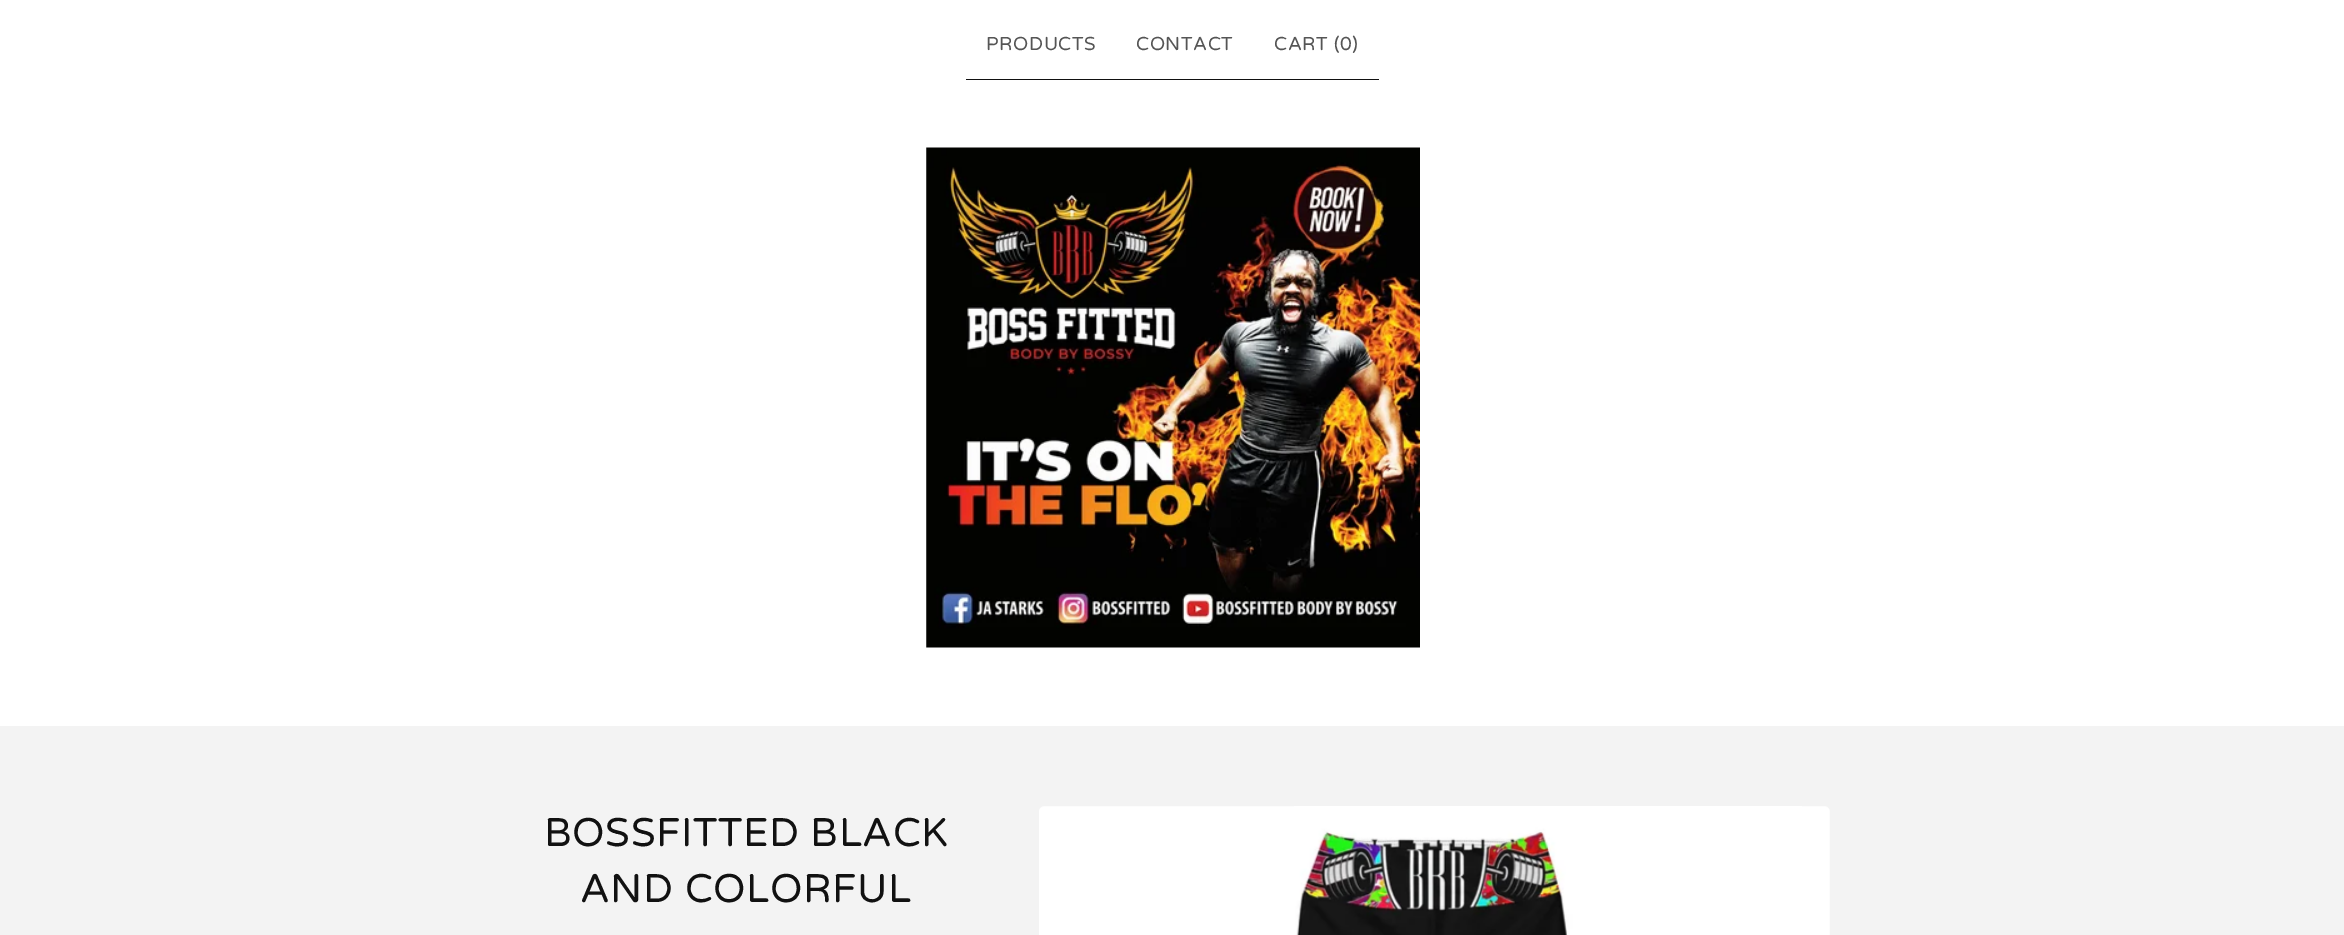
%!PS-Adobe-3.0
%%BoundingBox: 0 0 2344 935
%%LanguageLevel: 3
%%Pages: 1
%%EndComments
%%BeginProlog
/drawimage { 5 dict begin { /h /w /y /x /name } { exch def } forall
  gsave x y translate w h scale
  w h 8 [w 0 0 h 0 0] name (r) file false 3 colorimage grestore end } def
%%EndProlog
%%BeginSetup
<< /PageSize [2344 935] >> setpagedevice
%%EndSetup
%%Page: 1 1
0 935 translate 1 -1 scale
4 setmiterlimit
1 setgray
0 0 2344 935 rectfill
0.067 setgray
966 79 413 1 rectfill
(images/1.raw) 926 147 494 501 drawimage
0.953 setgray
0 726 2344 209 rectfill
(images/2.raw) 1039 806 791 129 drawimage
/VarelaRound-Regular [18.75 0 0 -18.75 0 0] selectfont
0.333 setgray
986 50 moveto 0.6 0 (PRODUCTS) ashow
1136 50 moveto 0.6 0 (CONTACT) ashow
1274 50 moveto 0.6 0 (CART \(0\)) ashow
/VarelaRound-Regular [40 0 0 -40 0 0] selectfont
0.067 setgray
544 846 moveto 0.6 0 (BOSSFITTED BLACK) ashow
580 902 moveto 0.6 0 (AND COLORFUL) ashow
showpage
%%EOF
